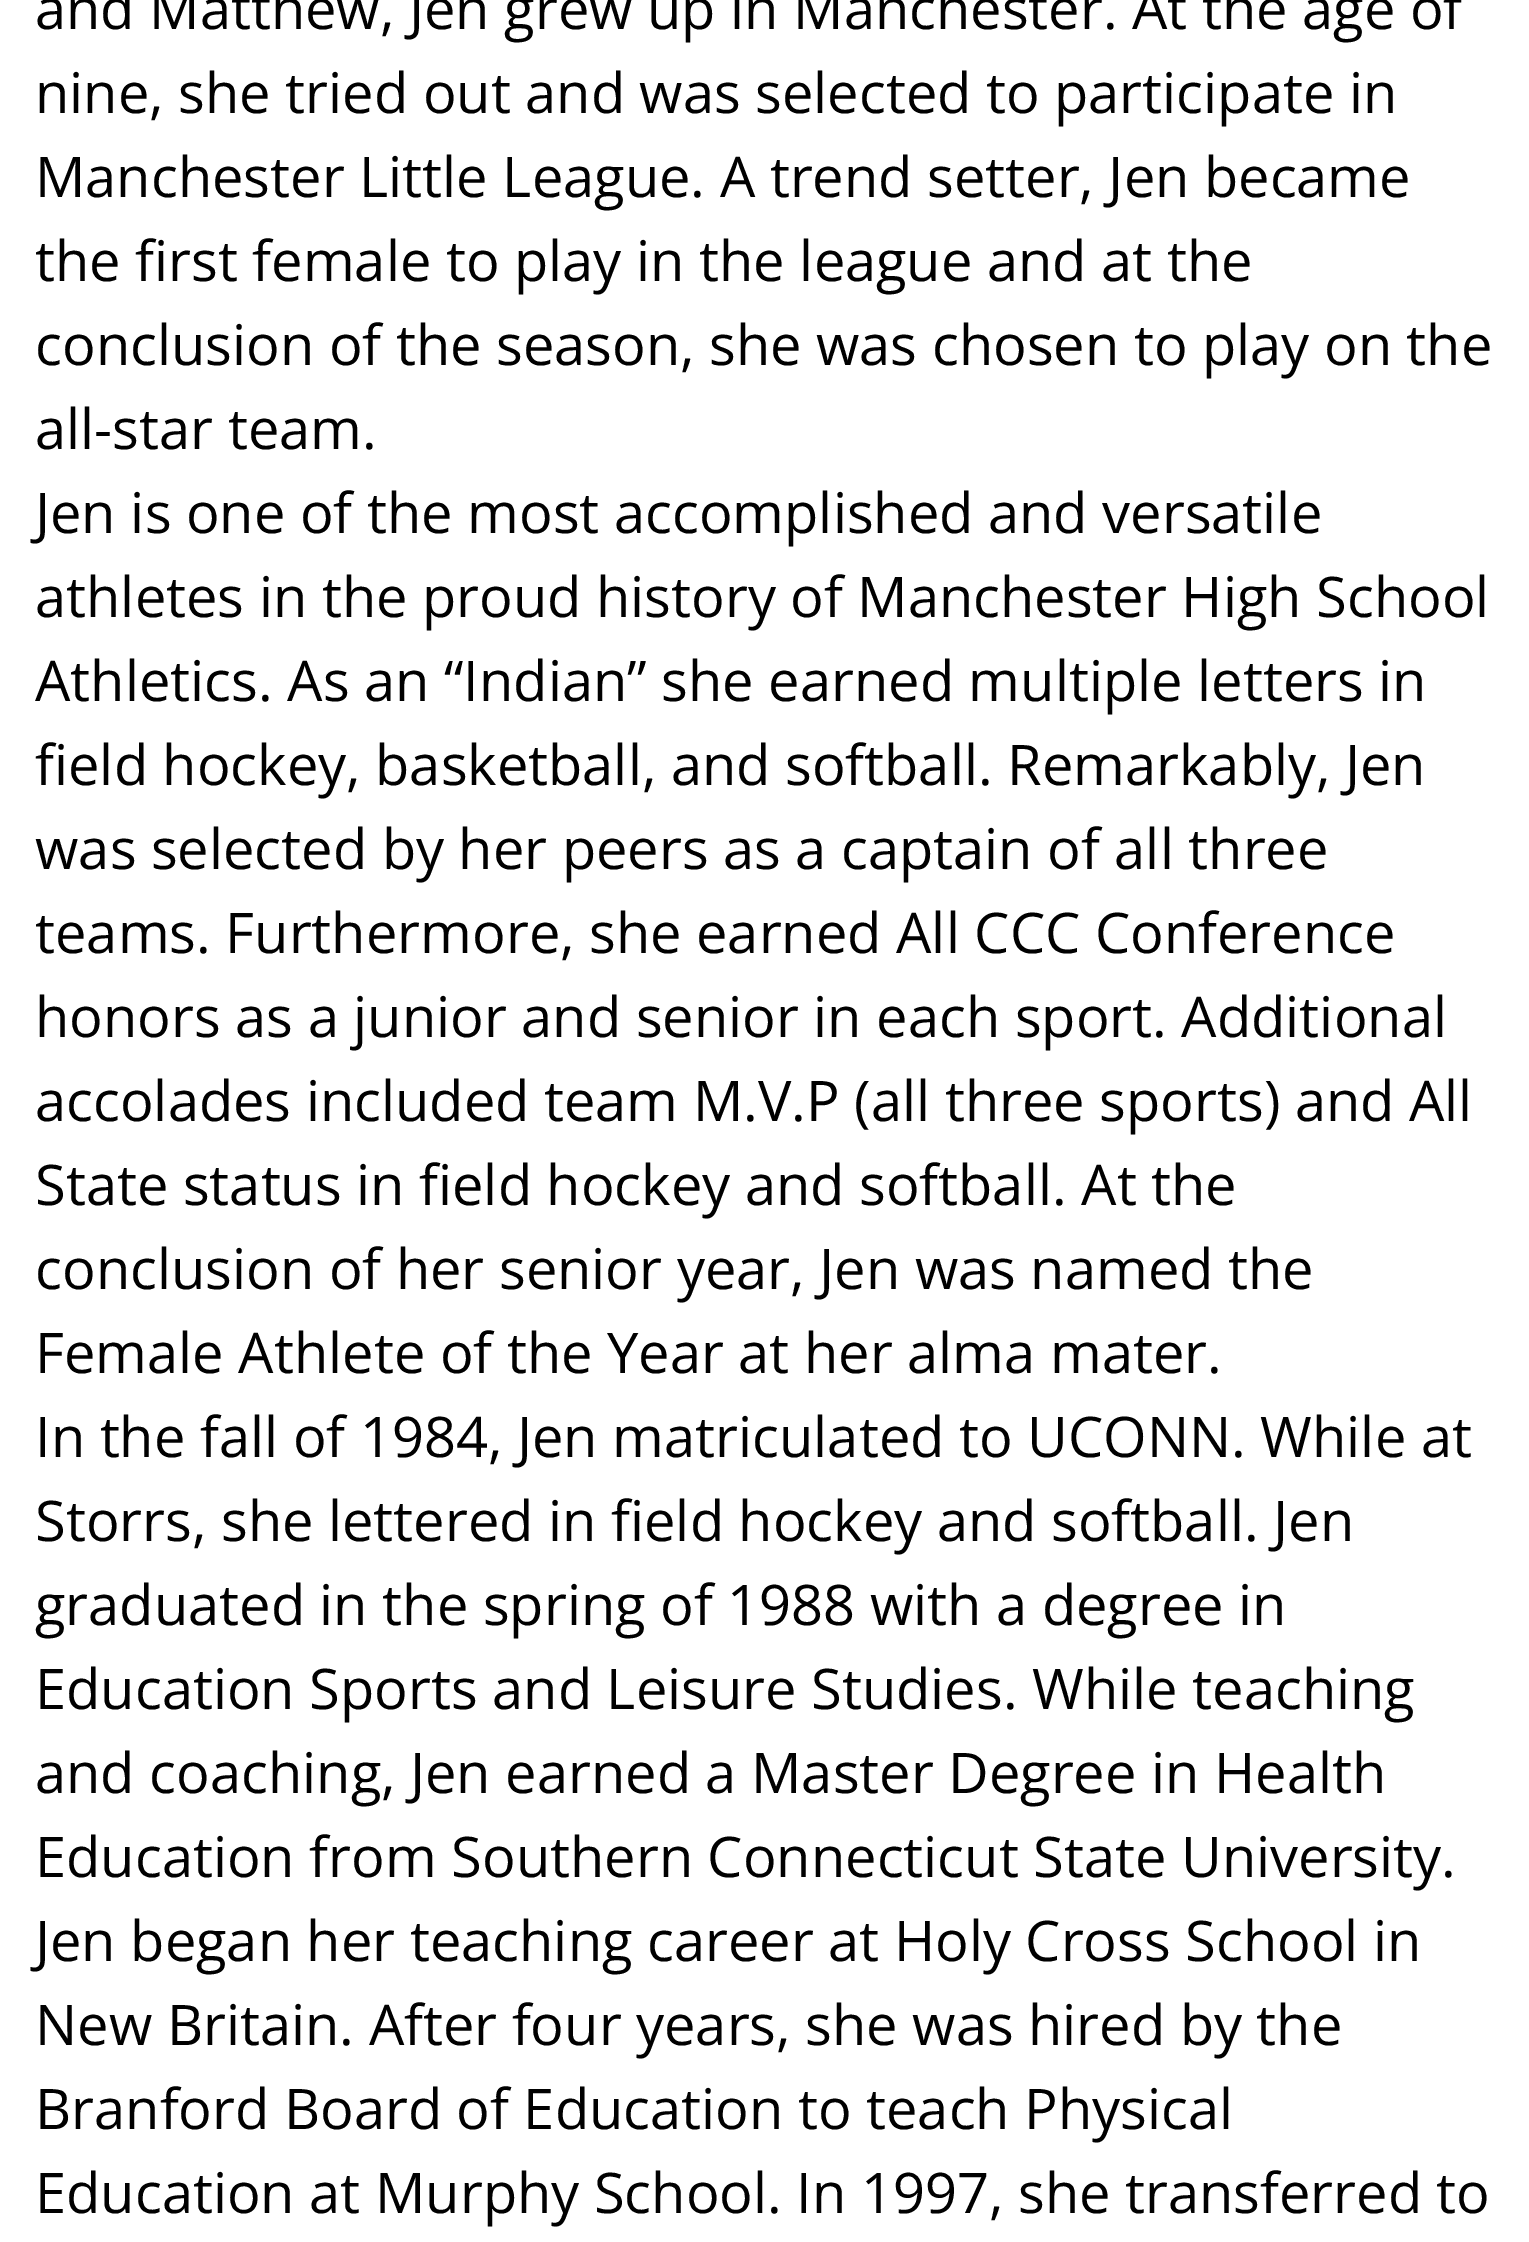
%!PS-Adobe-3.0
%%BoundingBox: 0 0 1529 2242
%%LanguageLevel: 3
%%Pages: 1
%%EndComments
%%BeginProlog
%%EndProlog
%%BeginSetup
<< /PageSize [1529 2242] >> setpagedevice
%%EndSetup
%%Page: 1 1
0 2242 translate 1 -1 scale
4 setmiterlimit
1 setgray
0 0 1529 2242 rectfill
/OpenSans-Regular [56 0 0 -56 0 0] selectfont
0 setgray
35 29 moveto (and Matthew, Jen grew up in Manchester. At the age of) show
35 113 moveto (nine, she tried out and was selected to participate in) show
35 197 moveto (Manchester Little League. A trend setter, Jen became) show
35 281 moveto (the first female to play in the league and at the) show
35 365 moveto (conclusion of the season, she was chosen to play on the) show
35 449 moveto (all-star team.) show
35 533 moveto (Jen is one of the most accomplished and versatile) show
35 617 moveto (athletes in the proud history of Manchester High School) show
35 701 moveto (Athletics. As an “Indian” she earned multiple letters in) show
35 785 moveto (field hockey, basketball, and softball. Remarkably, Jen) show
35 869 moveto (was selected by her peers as a captain of all three) show
35 953 moveto (teams. Furthermore, she earned All CCC Conference) show
35 1037 moveto (honors as a junior and senior in each sport. Additional) show
35 1121 moveto (accolades included team M.V.P \(all three sports\) and All) show
35 1205 moveto (State status in field hockey and softball. At the) show
35 1289 moveto (conclusion of her senior year, Jen was named the) show
35 1373 moveto (Female Athlete of the Year at her alma mater.) show
35 1457 moveto (In the fall of 1984, Jen matriculated to UCONN. While at) show
35 1541 moveto (Storrs, she lettered in field hockey and softball. Jen) show
35 1625 moveto (graduated in the spring of 1988 with a degree in) show
35 1709 moveto (Education Sports and Leisure Studies. While teaching) show
35 1793 moveto (and coaching, Jen earned a Master Degree in Health) show
35 1877 moveto (Education from Southern Connecticut State University.) show
35 1961 moveto (Jen began her teaching career at Holy Cross School in) show
35 2045 moveto (New Britain. After four years, she was hired by the) show
35 2129 moveto (Branford Board of Education to teach Physical) show
35 2213 moveto (Education at Murphy School. In 1997, she transferred to) show
showpage
%%EOF
